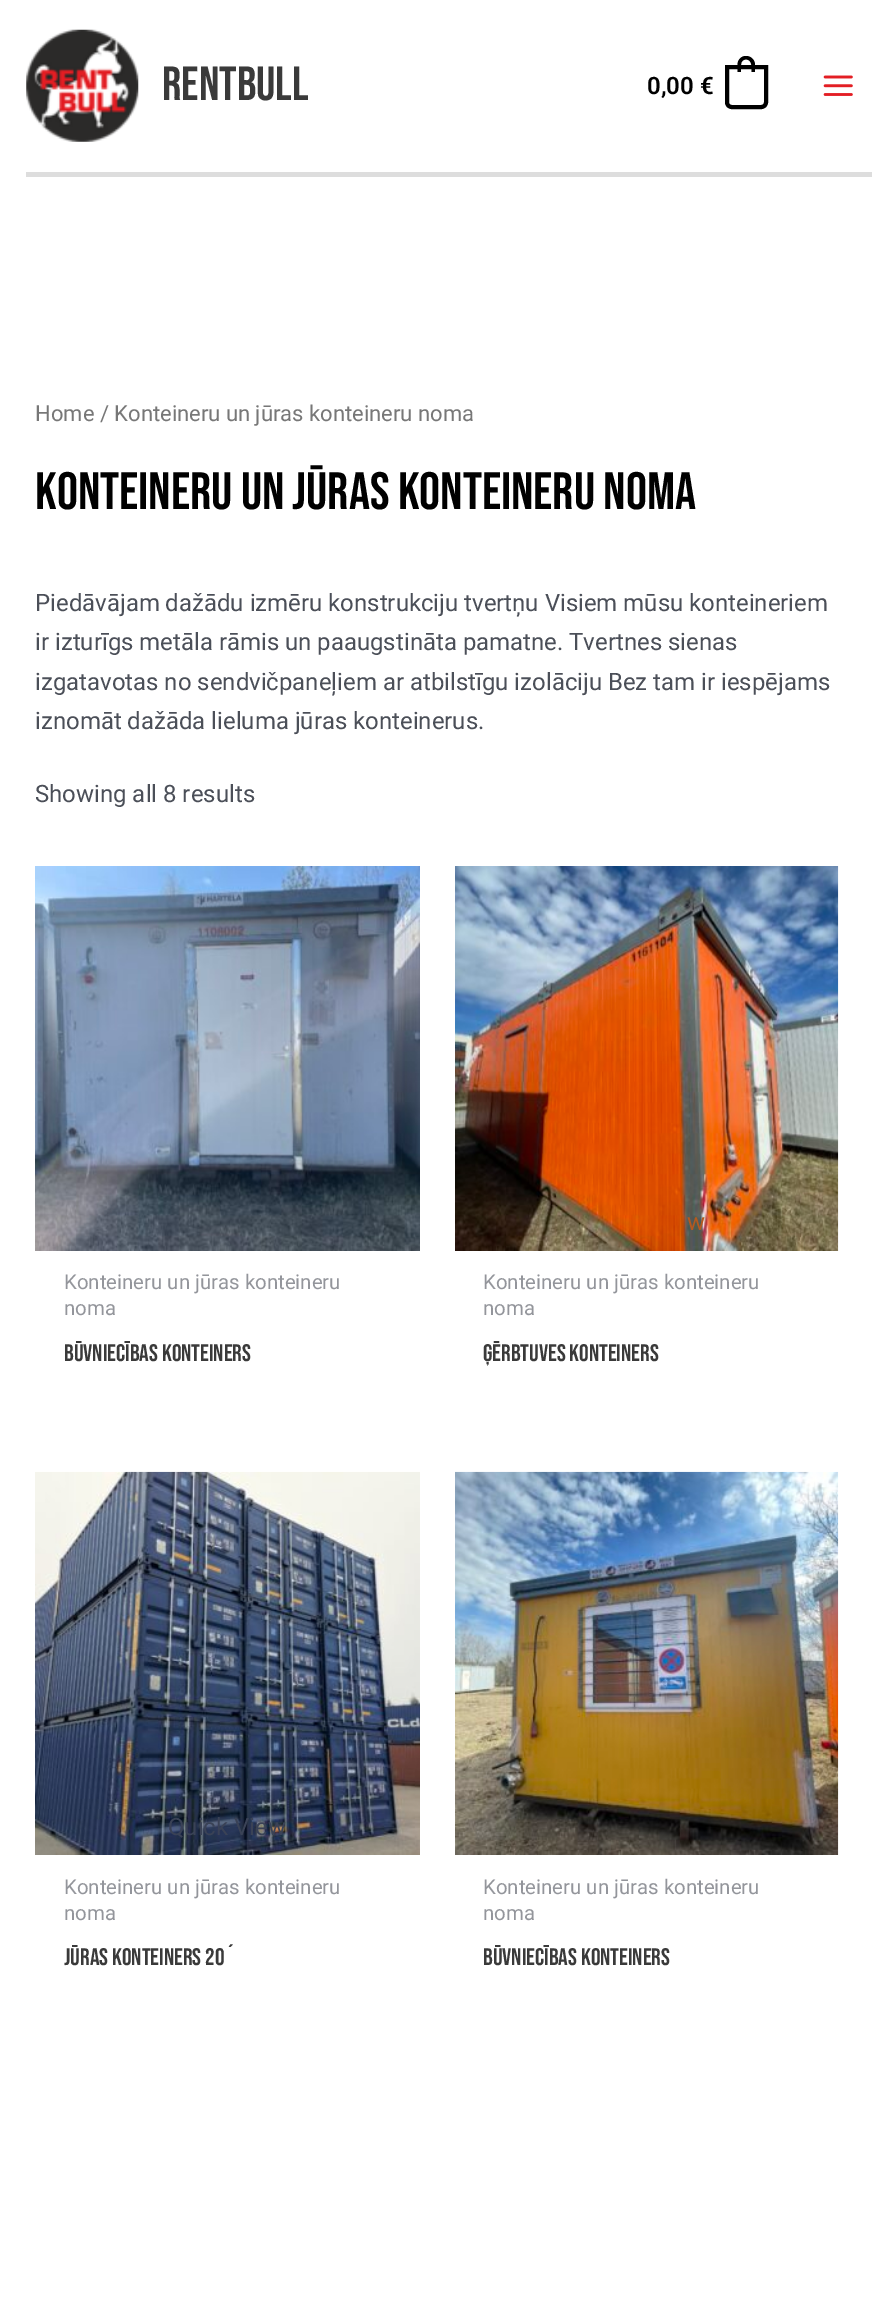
%!PS-Adobe-3.0
%%BoundingBox: 0 0 872 2303
%%LanguageLevel: 3
%%Pages: 1
%%EndComments
%%BeginProlog
/drawimage { 5 dict begin { /h /w /y /x /name } { exch def } forall
  gsave x y translate w h scale
  w h 8 [w 0 0 h 0 0] name (r) file false 3 colorimage grestore end } def
%%EndProlog
%%BeginSetup
<< /PageSize [872 2303] >> setpagedevice
%%EndSetup
%%Page: 1 1
0 2303 translate 1 -1 scale
4 setmiterlimit
1 setgray
0 0 872 2303 rectfill
0.867 setgray
26 172 846 5 rectfill
(images/1.raw) 26 29 113 113 drawimage
0 setgray
4 setlinewidth
newpath 727 67 moveto 766 67 lineto 766 102 lineto 766 105 764 107 761 107 curveto 732 107 lineto 729 107 727 105 727 102 curveto closepath stroke
newpath 746 56 moveto 751 56 755 60 755 65 curveto 755 72 lineto 737.5 72 lineto 737.5 65 lineto 737.5 60 741 56 746 56 curveto closepath 746 59.5 moveto 752.5 59.5 751.5 67.5 751.5 72 curveto 741 72 lineto 741 67.5 739.5 59.5 746 59.5 curveto closepath eofill
(images/2.raw) 823 75 30 21 drawimage
(images/3.raw) 35 866 385 385 drawimage
(images/4.raw) 455 866 384 385 drawimage
(images/5.raw) 35 1471 385 384 drawimage
(images/6.raw) 455 1471 384 384 drawimage
/BebasNeue-Regular [48 0 0 -48 0 0] selectfont
0.227 setgray
162 100 moveto (Rentbull) show
/Roboto-SemiBold [23.95 0 0 -23.95 0 0] selectfont
0 setgray
647 94 moveto (0,00 €) show
/Roboto-Regular [22 0 0 -22 0 0] selectfont
0.467 setgray
35 421 moveto (Home / Konteineru un jūras konteineru noma) show
/BebasNeue-Regular [52.5 0 0 -52.5 0 0] selectfont
0 setgray
35 509 moveto (Konteineru un jūras konteineru noma) show
/Roboto-Regular [23.95 0 0 -23.95 0 0] selectfont
0.294 0.31 0.345 setrgbcolor
35 611 moveto (Piedāvājam dažādu izmēru konstrukciju tvertņu Visiem mūsu konteineriem) show
35 650 moveto (ir izturīgs metāla rāmis un paaugstināta pamatne. Tvertnes sienas) show
35 690 moveto (izgatavotas no sendvičpaneļiem ar atbilstīgu izolāciju Bez tam ir iespējams) show
35 729 moveto (iznomāt dažāda lieluma jūras konteinerus.) show
35 802 moveto (Showing all 8 results) show
/Roboto-Regular [20.4 0 0 -20.4 0 0] selectfont
0.576 0.584 0.608 setrgbcolor
64 1289 moveto (Konteineru un jūras konteineru) show
64 1315 moveto (noma) show
/BebasNeue-Regular [23.95 0 0 -23.95 0 0] selectfont
0.227 setgray
64 1361 moveto (būvniecības konteiners) show
/Roboto-Regular [23.95 0 0 -23.95 0 0] selectfont
0.71 0.349 0.122 setrgbcolor
687 1230 moveto (w) show
/Roboto-Regular [20.4 0 0 -20.4 0 0] selectfont
0.576 0.584 0.608 setrgbcolor
483 1289 moveto (Konteineru un jūras konteineru) show
483 1315 moveto (noma) show
/BebasNeue-Regular [23.95 0 0 -23.95 0 0] selectfont
0.227 setgray
483 1361 moveto (Ģērbtuves konteiners) show
/Roboto-Regular [23.95 0 0 -23.95 0 0] selectfont
0.227 0.259 0.337 setrgbcolor
168 1835 moveto (Quick View) show
/Roboto-Regular [20.4 0 0 -20.4 0 0] selectfont
0.576 0.584 0.608 setrgbcolor
64 1894 moveto (Konteineru un jūras konteineru) show
64 1920 moveto (noma) show
/BebasNeue-Regular [23.95 0 0 -23.95 0 0] selectfont
0.227 setgray
64 1965 moveto (jūras konteiners 20´) show
/Roboto-Regular [20.4 0 0 -20.4 0 0] selectfont
0.576 0.584 0.608 setrgbcolor
483 1894 moveto (Konteineru un jūras konteineru) show
483 1920 moveto (noma) show
/BebasNeue-Regular [23.95 0 0 -23.95 0 0] selectfont
0.227 setgray
483 1965 moveto (būvniecības konteiners) show
showpage
%%EOF
